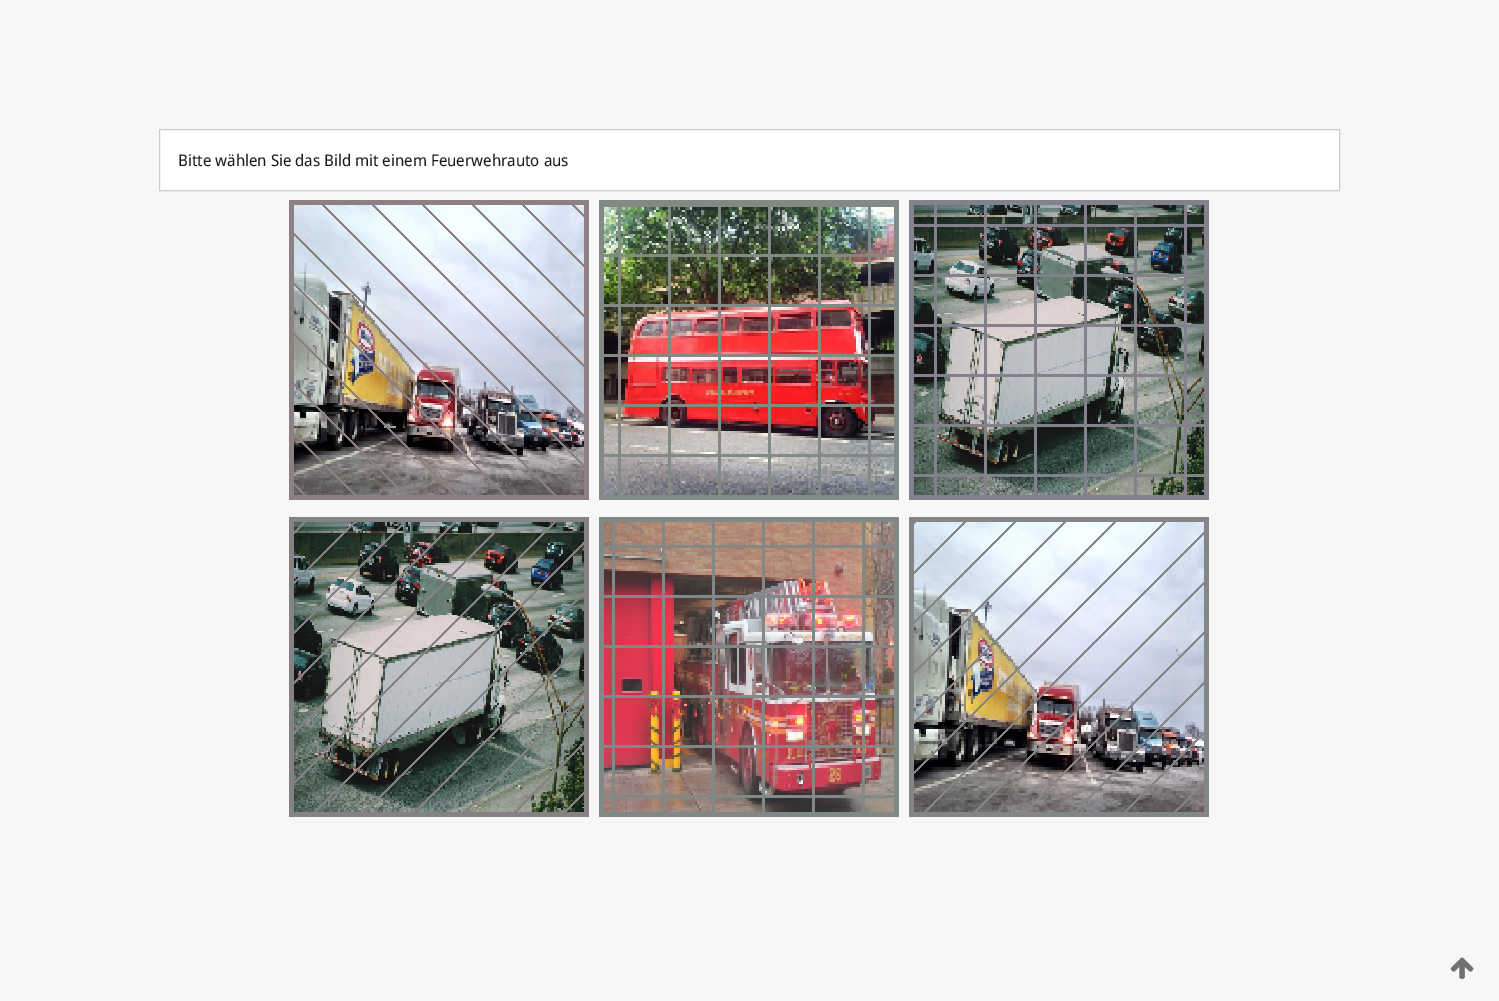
%!PS-Adobe-3.0
%%BoundingBox: 0 0 1499 1001
%%LanguageLevel: 3
%%Pages: 1
%%EndComments
%%BeginProlog
/drawimage { 5 dict begin { /h /w /y /x /name } { exch def } forall
  gsave x y translate w h scale
  w h 8 [w 0 0 h 0 0] name (r) file false 3 colorimage grestore end } def
%%EndProlog
%%BeginSetup
<< /PageSize [1499 1001] >> setpagedevice
%%EndSetup
%%Page: 1 1
0 1001 translate 1 -1 scale
4 setmiterlimit
0.969 setgray
0 0 1499 1001 rectfill
1 setgray
newpath 159.5 129.5 moveto 1339.5 129.5 lineto 1339.5 190.5 lineto 159.5 190.5 lineto closepath gsave fill grestore
0.8 setgray
stroke
(images/1.raw) 289 200 300 300 drawimage
(images/2.raw) 599 200 300 300 drawimage
(images/3.raw) 909 200 300 300 drawimage
(images/4.raw) 289 517 300 300 drawimage
(images/5.raw) 599 517 300 300 drawimage
(images/6.raw) 909 517 300 300 drawimage
(images/7.raw) 1450 957 24 22 drawimage
/NotoSansDisplay-Regular [16 0 0 -16 0 0] selectfont
0.102 setgray
178 166 moveto (Bitte wählen Sie das Bild mit einem Feuerwehrauto aus) show
showpage
%%EOF
